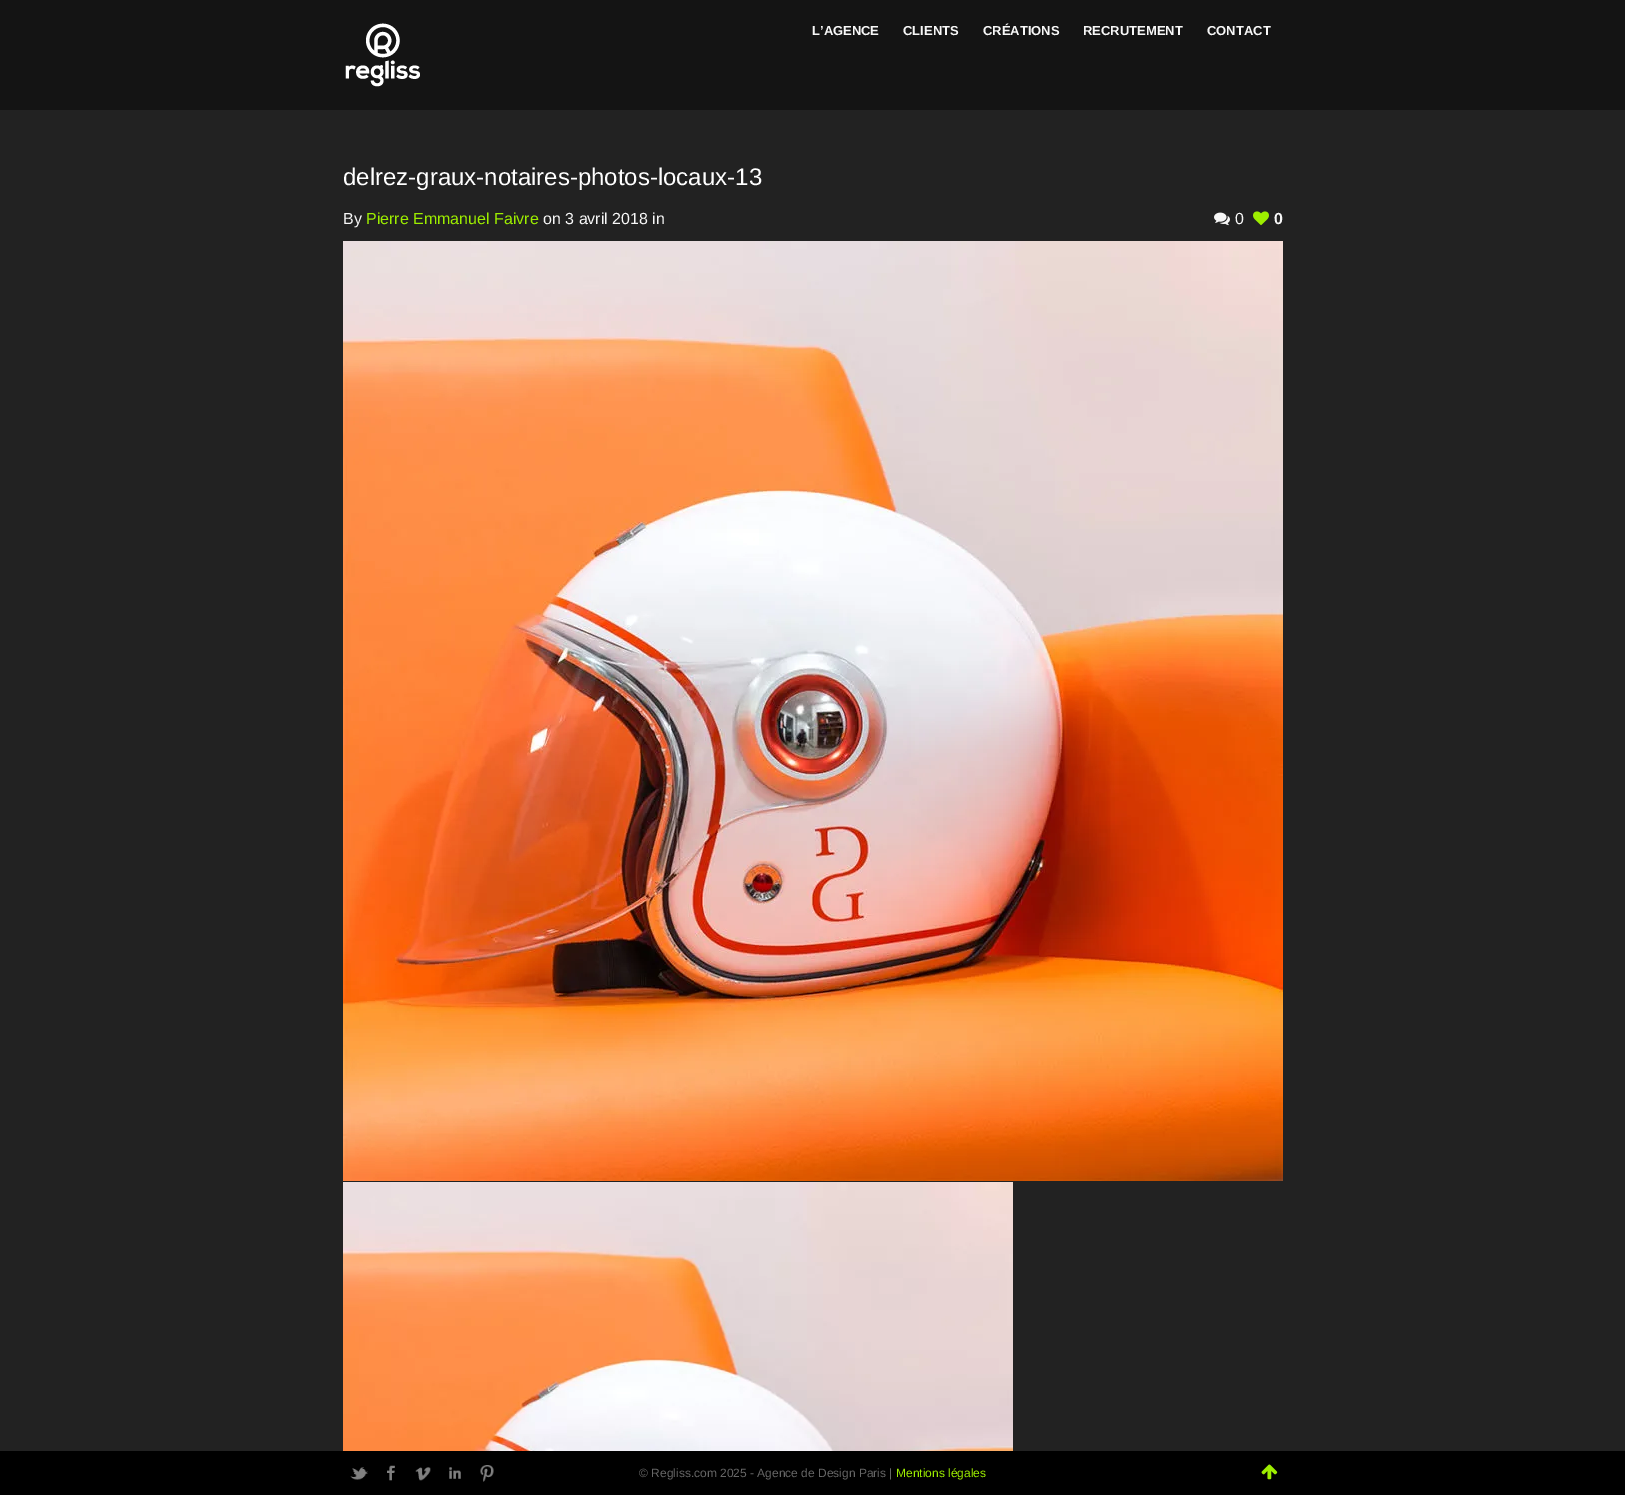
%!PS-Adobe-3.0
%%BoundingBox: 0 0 1625 1495
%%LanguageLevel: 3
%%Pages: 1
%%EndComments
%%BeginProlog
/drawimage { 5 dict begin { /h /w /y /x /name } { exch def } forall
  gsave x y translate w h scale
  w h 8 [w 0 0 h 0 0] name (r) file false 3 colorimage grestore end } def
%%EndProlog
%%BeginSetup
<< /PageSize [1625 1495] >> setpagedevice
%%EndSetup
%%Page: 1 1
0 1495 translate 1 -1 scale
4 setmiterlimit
0.133 setgray
0 0 1625 1495 rectfill
0.078 setgray
0 0 1625 110 rectfill
(images/1.raw) 345 23 75 64 drawimage
(images/2.raw) 1214 212 16 14 drawimage
(images/3.raw) 1253 211 16 15 drawimage
(images/4.raw) 343 241 940 940 drawimage
(images/5.raw) 343 1182 670 269 drawimage
0 setgray
0 1451 1625 44 rectfill
(images/6.raw) 350 1467 18 13 drawimage
(images/7.raw) 387 1465 8 16 drawimage
(images/8.raw) 415 1467 16 14 drawimage
(images/9.raw) 449 1467 12 12 drawimage
(images/10.raw) 480 1465 14 17 drawimage
(images/11.raw) 1261 1464 17 16 drawimage
/LiberationSans-Bold [13 0 0 -13 0 0] selectfont
0.969 setgray
812 35 moveto (L’AGENCE) show
903 35 moveto (CLIENTS) show
983 35 moveto (CRÉATIONS) show
1083 35 moveto (RECRUTEMENT) show
1207 35 moveto (CONTACT) show
/LiberationSans-Regular [24 0 0 -24 0 0] selectfont
1 setgray
343 185 moveto (delrez-graux-notaires-photos-locaux-13) show
/LiberationSans-Regular [16 0 0 -16 0 0] selectfont
0.969 setgray
343 224 moveto (By) show
0.616 0.933 0 setrgbcolor
366 224 moveto (Pierre Emmanuel Faivre) show
0.969 setgray
543 224 moveto (on 3 avril 2018 in) show
1235 224 moveto (0) show
/LiberationSans-Bold [16 0 0 -16 0 0] selectfont
1274 224 moveto (0) show
/LiberationSans-Regular [12 0 0 -12 0 0] selectfont
0.4 setgray
639 1477 moveto (© Regliss.com 2025 - Agence de Design Paris |) show
0.616 0.933 0 setrgbcolor
896 1477 moveto (Mentions légales) show
showpage
%%EOF
